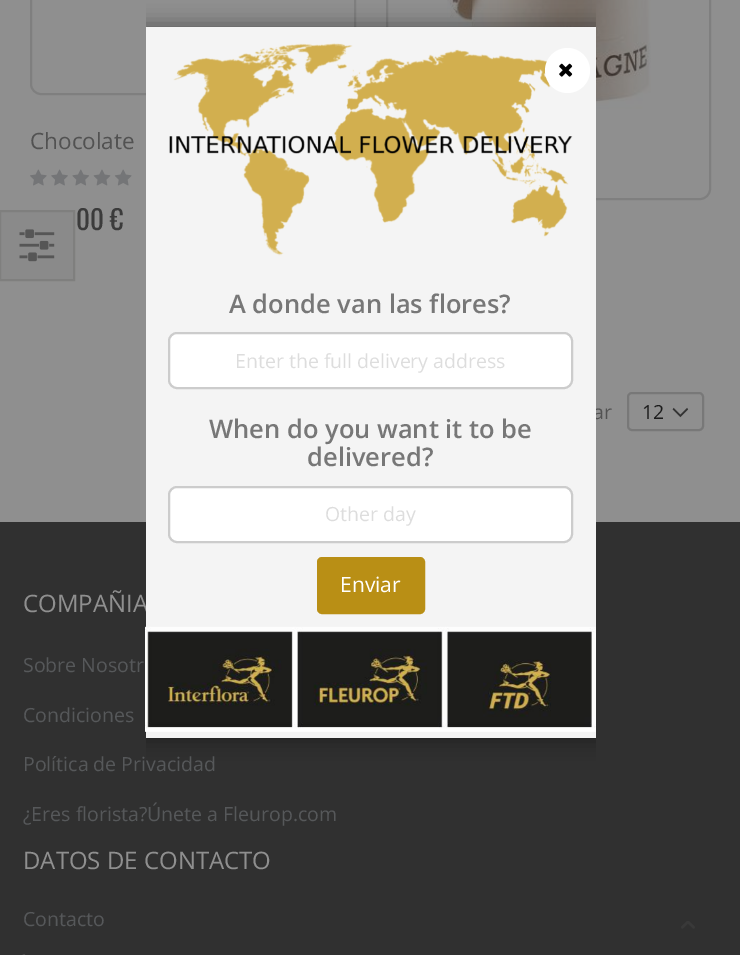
%!PS-Adobe-3.0
%%BoundingBox: 0 0 740 955
%%LanguageLevel: 3
%%Pages: 1
%%EndComments
%%BeginProlog
/setalpha { dup .setfillconstantalpha .setstrokeconstantalpha } def
/rrect { 5 dict begin { /r /h /w /y /x } { exch def } forall
  x r add y moveto x w add y 2 copy h add r arct x w add y h add x 1 index r arct
  x y h add x y r arct x y 2 copy exch w add exch r arct closepath end } def
/softshadow { 12 dict begin { /a /b /q /h /w /y /x } { exch def } forall gsave /was 0 def
  9 -2 -9 { dup b mul 4 div /e exch def 1 sub .425 mul 2.718 exch exp 1 add a .99 .min exch div /now exch def
    1 1 now sub 1 was sub div sub setalpha /was now def
    w h .min e 2 mul add 0 gt { x e sub y e sub w e 2 mul add h e 2 mul add
      q e add b .6 mul add w h .min 2 div e add .min 0 .max rrect fill } if } for grestore end } def
/drawimage { 5 dict begin { /h /w /y /x /name } { exch def } forall
  gsave x y translate w h scale
  w h 8 [w 0 0 h 0 0] name (r) file false 3 colorimage grestore end } def
%%EndProlog
%%BeginSetup
<< /PageSize [740 955] /PageUsesTransparency true >> setpagedevice
%%EndSetup
%%Page: 1 1
0 .pushpdf14devicefilter
0 955 translate 1 -1 scale
4 setmiterlimit
0.561 setgray
0 0 740 955 rectfill
0.498 setgray
2 setlinewidth
31 -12 324 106 10 rrect stroke
(images/1.raw) 30 169 102 17 drawimage
387 -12 323 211 10 rrect stroke
(images/2.raw) 447 0 204 109 drawimage
(images/3.raw) 672 407 17 11 drawimage
0.471 setgray
628 393 75 37 4 rrect stroke
0.541 setgray
newpath 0 211 moveto 74 211 lineto 74 280 lineto 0 280 lineto closepath gsave fill grestore
0.498 0.498 0.494 setrgbcolor
stroke
(images/4.raw) 19 229 36 33 drawimage
0.188 setgray
0 522 740 433 rectfill
(images/5.raw) 22 954 4 1 drawimage
(images/6.raw) 681 921 14 8 drawimage
gsave
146 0 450 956 rectclip
0 setgray
143 24 456 717 0 9 0.35 softshadow
grestore
/OpenSans-Regular [22.5 0 0 -22.5 0 0] selectfont
0.322 setgray
30 149 moveto (Chocolate) show
/Oswald-Regular [27 0 0 -27 0 0] selectfont
0.231 setgray
76 230 moveto (00 €) show
/OpenSans-Regular [19.5 0 0 -19.5 0 0] selectfont
0.322 setgray
593 419 moveto (ar) show
0.11 setgray
642 419 moveto (12) show
/OpenSans-Regular [24 0 0 -24 0 0] selectfont
0.561 setgray
23 612 moveto (COMPAÑIA) show
/OpenSans-Regular [19.5 0 0 -19.5 0 0] selectfont
0.337 0.345 0.353 setrgbcolor
23 672 moveto (Sobre Nosotr) show
23 722 moveto (Condiciones) show
23 771 moveto (Política de Privacidad) show
23 821 moveto (¿Eres florista?Únete a Fleurop.com) show
/OpenSans-Regular [24 0 0 -24 0 0] selectfont
0.561 setgray
23 869 moveto (DATOS DE CONTACTO) show
/OpenSans-Regular [19.5 0 0 -19.5 0 0] selectfont
0.337 0.345 0.353 setrgbcolor
23 926 moveto (Contacto) show
0.957 setgray
146 27 450 711 rectfill
(images/8.raw) 169 43 404 213 drawimage
1 setgray
newpath 567.5 70.5 22.5 0 360 arc closepath fill
(images/7.raw) 559 63 14 14 drawimage
/OpenSans-SemiBold [25.5 0 0 -25.5 0 0] selectfont
0.467 setgray
229 313 moveto (A donde van las flores?) show
1 setgray
169 333 403 55 8 rrect gsave fill grestore
0.8 setgray
stroke
/OpenSans-Regular [19.5 0 0 -19.5 0 0] selectfont
0.867 setgray
235 368 moveto (Enter the full delivery address) show
/OpenSans-SemiBold [25.5 0 0 -25.5 0 0] selectfont
0.467 setgray
209 438 moveto (When do you want it to be) show
307 466 moveto (delivered?) show
1 setgray
169 487 403 55 8 rrect gsave fill grestore
0.8 setgray
stroke
/OpenSans-Regular [19.5 0 0 -19.5 0 0] selectfont
0.867 setgray
325 521 moveto (Other day) show
0.725 0.561 0.082 setrgbcolor
318 558 106 55 4 rrect gsave fill grestore
stroke
/OpenSans-Regular [21 0 0 -21 0 0] selectfont
1 setgray
340 592 moveto (Enviar) show
(images/9.raw) 145 626 451 106 drawimage
.poppdf14devicefilter showpage
%%EOF
